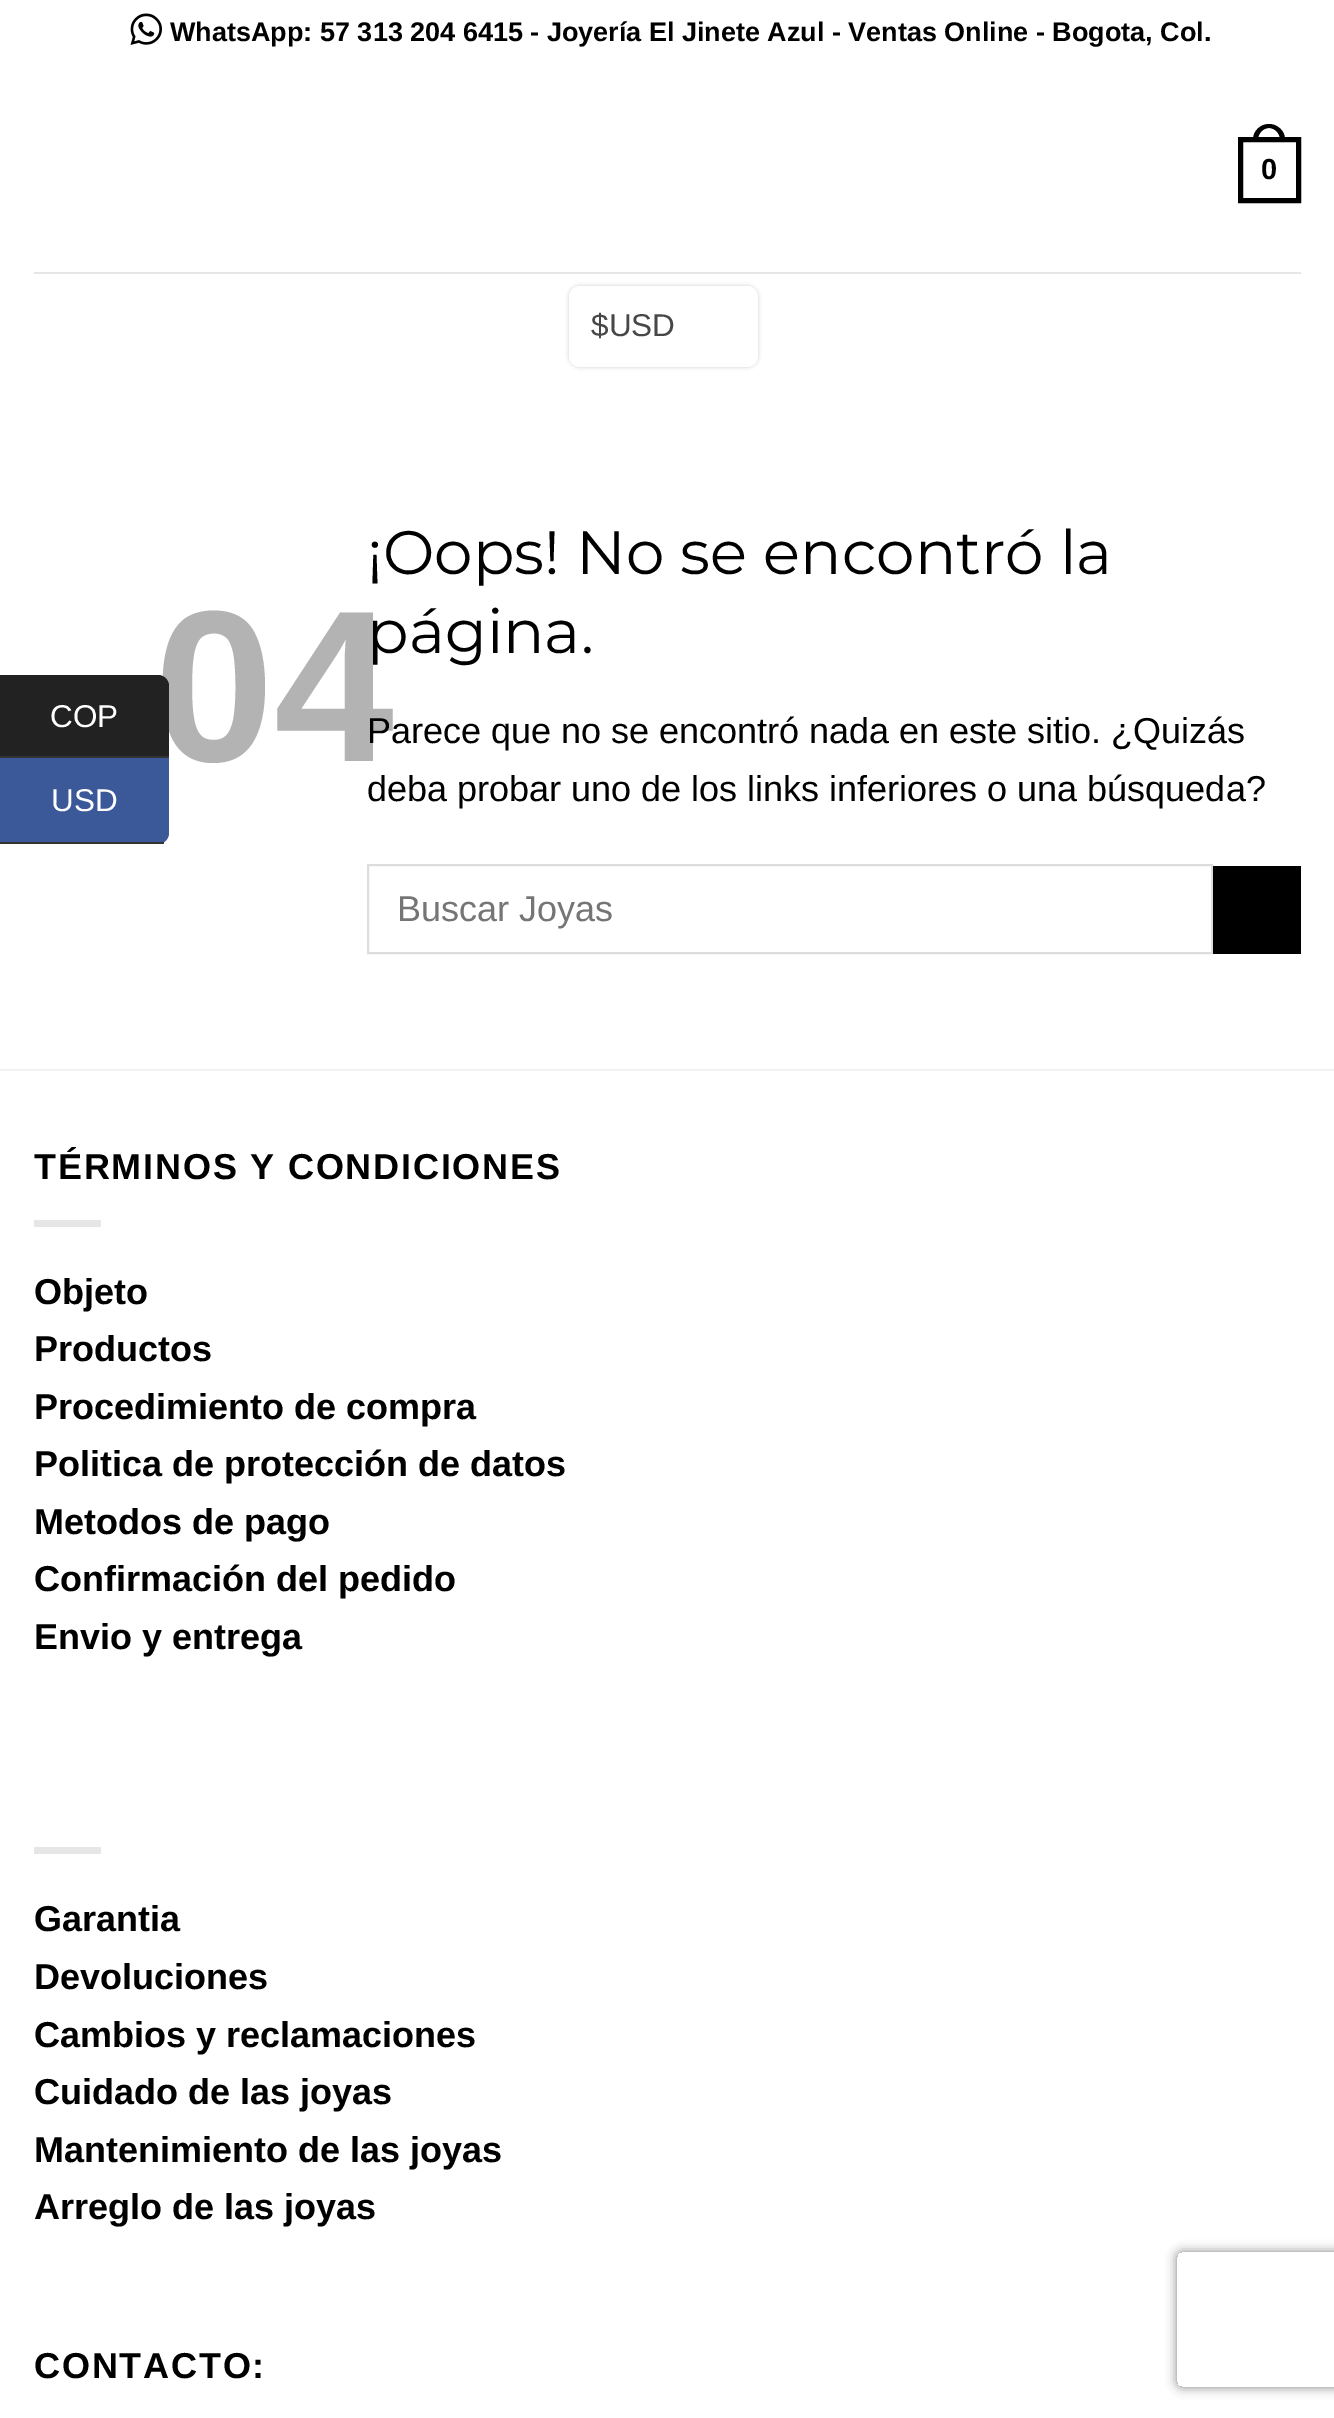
%!PS-Adobe-3.0
%%BoundingBox: 0 0 1334 2418
%%LanguageLevel: 3
%%Pages: 1
%%EndComments
%%BeginProlog
/setalpha { dup .setfillconstantalpha .setstrokeconstantalpha } def
/rrect { 5 dict begin { /r /h /w /y /x } { exch def } forall
  x r add y moveto x w add y 2 copy h add r arct x w add y h add x 1 index r arct
  x y h add x y r arct x y 2 copy exch w add exch r arct closepath end } def
/softshadow { 12 dict begin { /a /b /q /h /w /y /x } { exch def } forall gsave /was 0 def
  9 -2 -9 { dup b mul 4 div /e exch def 1 sub .425 mul 2.718 exch exp 1 add a .99 .min exch div /now exch def
    1 1 now sub 1 was sub div sub setalpha /was now def
    w h .min e 2 mul add 0 gt { x e sub y e sub w e 2 mul add h e 2 mul add
      q e add b .6 mul add w h .min 2 div e add .min 0 .max rrect fill } if } for grestore end } def
/drawimage { 5 dict begin { /h /w /y /x /name } { exch def } forall
  gsave x y translate w h scale
  w h 8 [w 0 0 h 0 0] name (r) file false 3 colorimage grestore end } def
%%EndProlog
%%BeginSetup
<< /PageSize [1334 2418] /PageUsesTransparency true >> setpagedevice
%%EndSetup
%%Page: 1 1
0 .pushpdf14devicefilter
0 2418 translate 1 -1 scale
4 setmiterlimit
1 setgray
0 0 1334 2418 rectfill
(images/1.raw) 130 13 32 32 drawimage
0 setgray
5 setlinewidth
1240.5 139.5 58 61 rectstroke
newpath 1269 124 moveto 1277.5 124 1285 131 1285 139.5 curveto 1285 142 lineto 1253 142 lineto 1253 139.5 lineto 1253 131 1260.5 124 1269 124 curveto closepath 1269 128 moveto 1275 128 1280 133.5 1280 139.5 curveto 1280 142 lineto 1258 142 lineto 1258 139.5 lineto 1258 133.5 1263 128 1269 128 curveto closepath eofill
0.902 setgray
34 272 1267 2 rectfill
0.8 setgray
569 286 189 81 11 2 1 softshadow
1 setgray
569 286 189 81 11 rrect fill
0.867 setgray
2 setlinewidth
368 865 844 88 rectstroke
0 setgray
1213 866 88 88 rectfill
0.949 setgray
0 1069 1334 2 rectfill
0.902 setgray
34 1220 67 7 rectfill
34 1847 67 7 rectfill
gsave
newpath 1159 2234 moveto 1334 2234 lineto 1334 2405 lineto 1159 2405 lineto closepath 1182 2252 moveto 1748 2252 lineto 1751 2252 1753 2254 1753 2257 curveto 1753 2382 lineto 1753 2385 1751 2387 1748 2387 curveto 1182 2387 lineto 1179 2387 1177 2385 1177 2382 curveto 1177 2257 lineto 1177 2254 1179 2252 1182 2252 curveto closepath eoclip newpath
0.502 setgray
1177 2252 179 135 5 5.5 1 softshadow
grestore
/LiberationSans-Bold [27 0 0 -27 0 0] selectfont
0 setgray
170 41 moveto (WhatsApp: 57 313 204 6415 - Joyería El Jinete Azul - Ventas Online - Bogota, Col.) show
/LiberationSans-Bold [29 0 0 -29 0 0] selectfont
1261 179 moveto (0) show
/LiberationSans-Regular [31.5 0 0 -31.5 0 0] selectfont
0.278 setgray
591 336 moveto ($USD) show
/LiberationSans-Bold [216 0 0 -216 0 0] selectfont
0.702 setgray
154 761 moveto (04) show
/Montserrat-Regular [61.25 0 0 -61.25 0 0] selectfont
0 setgray
367 574 moveto (¡Oops! No se encontró la) show
367 653 moveto (página.) show
/LiberationSans-Regular [36 0 0 -36 0 0] selectfont
367 743 moveto (Parece que no se encontró nada en este sitio. ¿Quizás) show
367 801 moveto (deba probar uno de los links inferiores o una búsqueda?) show
0.459 setgray
397 921 moveto (Buscar Joyas) show
/LiberationSans-Bold [36 0 0 -36 0 0] selectfont
0 setgray
34 1179 moveto 1.8 0 (TÉRMINOS Y CONDICIONES) ashow
34 1304 moveto (Objeto) show
34 1361 moveto (Productos) show
34 1419 moveto (Procedimiento de compra) show
34 1476 moveto (Politica de protección de datos) show
34 1534 moveto (Metodos de pago) show
34 1591 moveto (Confirmación del pedido) show
34 1649 moveto (Envio y entrega) show
34 1931 moveto (Garantia) show
34 1989 moveto (Devoluciones) show
34 2047 moveto (Cambios y reclamaciones) show
34 2104 moveto (Cuidado de las joyas) show
34 2162 moveto (Mantenimiento de las joyas) show
34 2219 moveto (Arreglo de las joyas) show
34 2378 moveto 1.8 0 (CONTACTO:) ashow
0.133 setgray
newpath 0 675 moveto 158 675 lineto 164 675 169 680 169 686 curveto 169 758 lineto 0 758 lineto closepath fill
0.2 setgray
0 756 169 2 rectfill
/LiberationSans-Regular [31.5 0 0 -31.5 0 0] selectfont
1 setgray
50 727 moveto (COP) show
0.231 0.349 0.596 setrgbcolor
newpath 0 758 moveto 169 758 lineto 169 833 lineto 169 839 164 844 158 844 curveto 0 844 lineto closepath fill
0.2 setgray
0 842 164 2 rectfill
1 setgray
51 811 moveto (USD) show
.poppdf14devicefilter showpage
%%EOF
